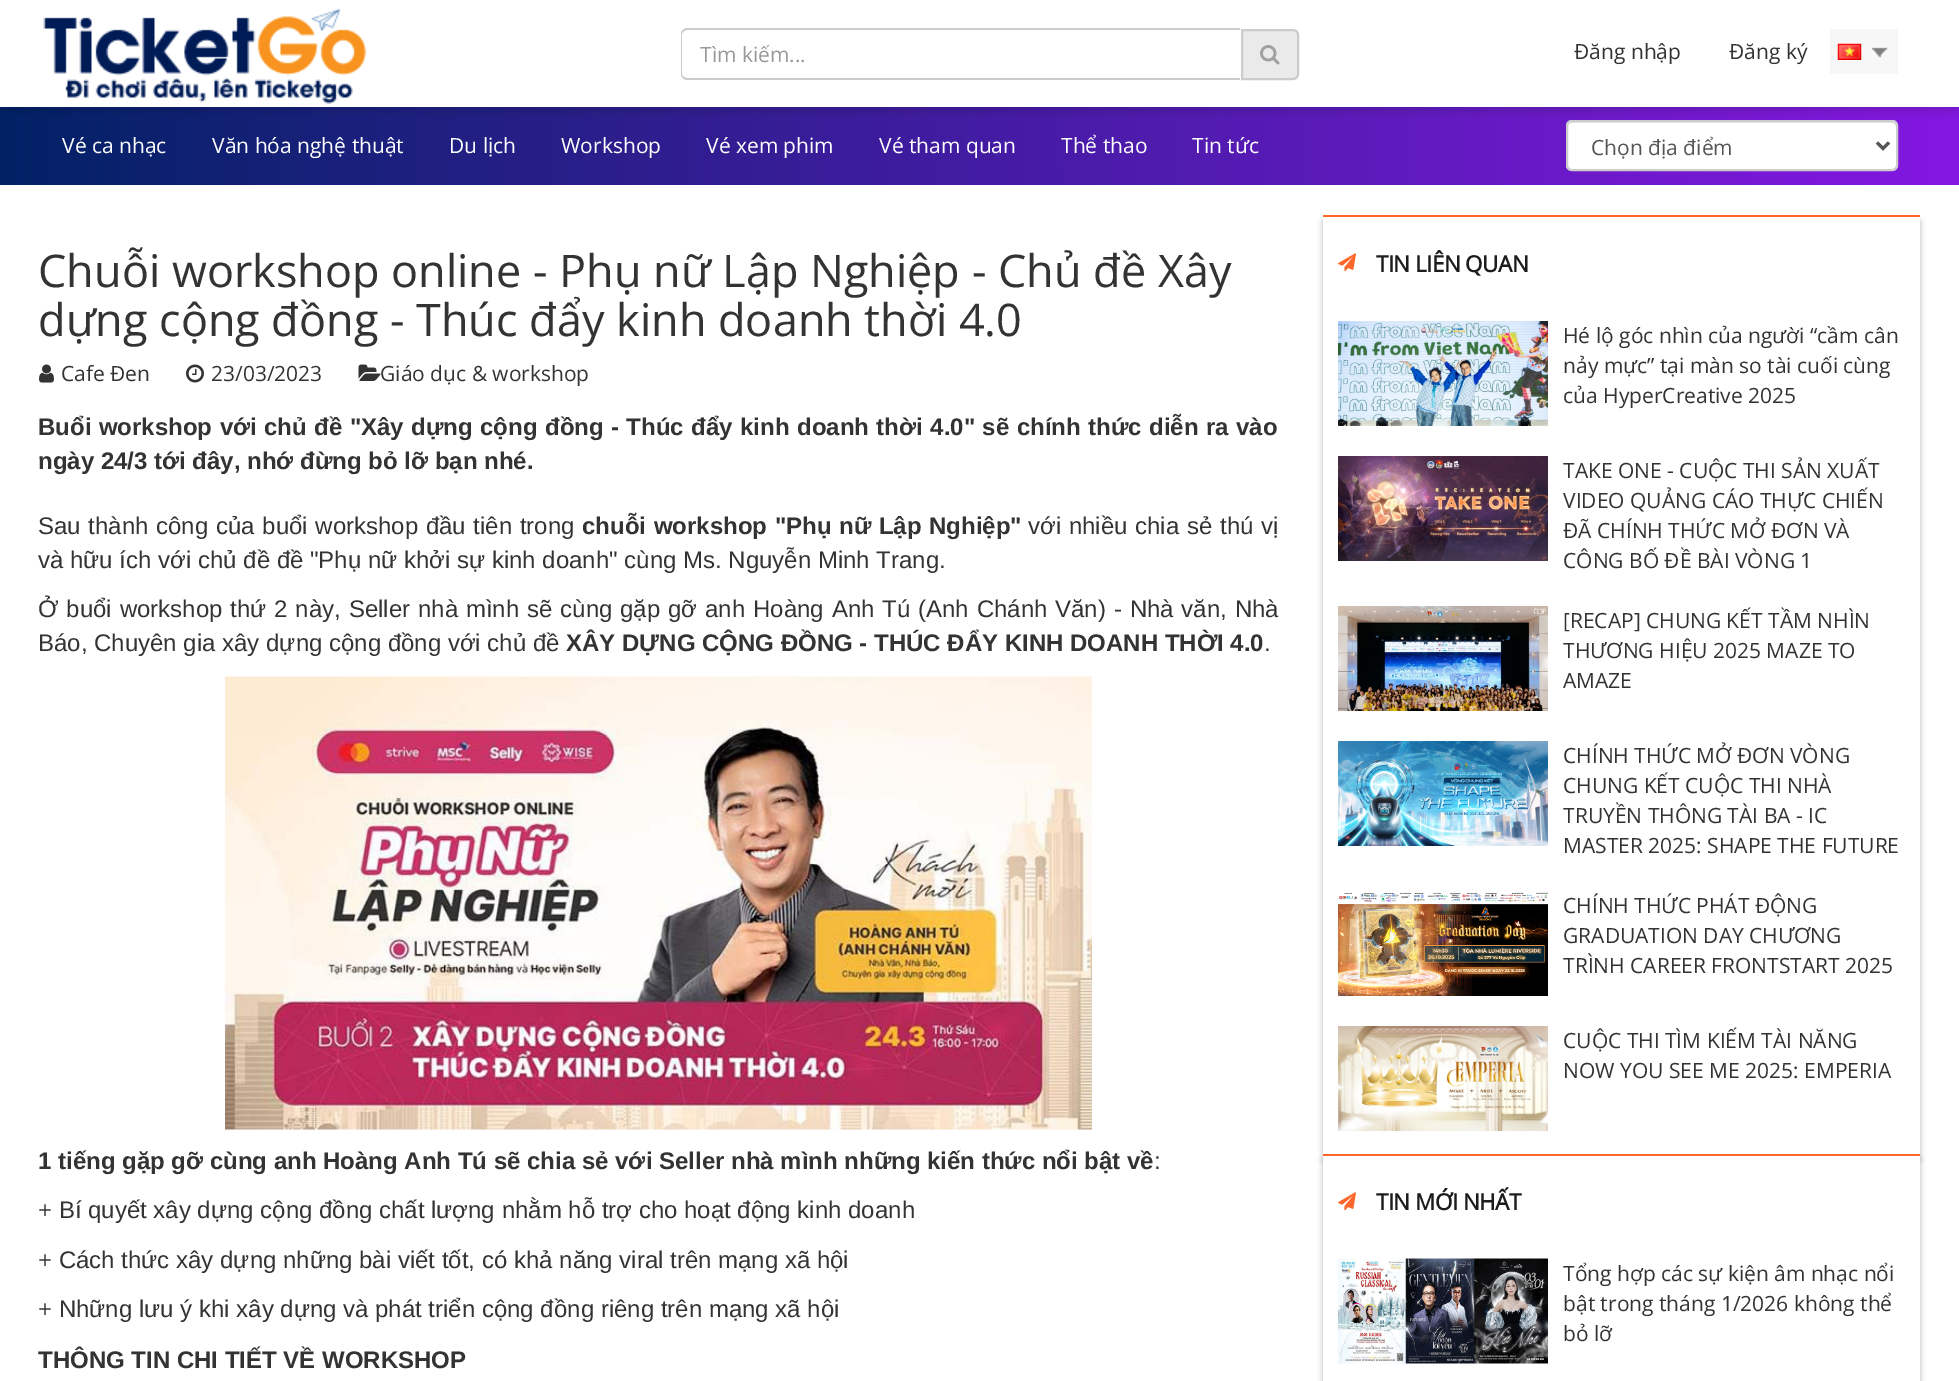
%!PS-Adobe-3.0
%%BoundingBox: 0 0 1959 1381
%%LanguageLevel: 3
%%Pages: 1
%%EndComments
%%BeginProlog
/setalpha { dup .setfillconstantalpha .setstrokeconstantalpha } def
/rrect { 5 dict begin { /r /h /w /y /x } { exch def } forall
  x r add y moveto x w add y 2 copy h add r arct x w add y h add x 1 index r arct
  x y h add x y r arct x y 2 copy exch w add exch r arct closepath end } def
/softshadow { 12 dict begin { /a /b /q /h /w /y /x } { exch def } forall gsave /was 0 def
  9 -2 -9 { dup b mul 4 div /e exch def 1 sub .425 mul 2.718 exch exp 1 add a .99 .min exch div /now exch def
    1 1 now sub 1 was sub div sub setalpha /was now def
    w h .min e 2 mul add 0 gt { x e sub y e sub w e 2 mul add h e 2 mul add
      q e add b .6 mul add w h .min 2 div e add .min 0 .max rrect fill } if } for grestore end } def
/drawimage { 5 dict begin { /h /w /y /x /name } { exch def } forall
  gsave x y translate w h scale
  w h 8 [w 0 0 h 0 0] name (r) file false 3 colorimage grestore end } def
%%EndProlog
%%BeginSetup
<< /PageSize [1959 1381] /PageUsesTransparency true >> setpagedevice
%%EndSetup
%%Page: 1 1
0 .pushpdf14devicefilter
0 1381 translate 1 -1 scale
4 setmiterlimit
1 setgray
0 0 1959 1381 rectfill
gsave newpath 0 107 moveto 1959 107 lineto 1959 185 lineto 0 185 lineto closepath clip newpath
<< /ShadingType 2 /ColorSpace /DeviceRGB /Coords [0 146 1959 145] /Extend [true true] /Function << /FunctionType 2 /Domain [0 1] /C0 [0.008 0.133 0.396] /C1 [0.518 0.09 0.882] /N 1 >> >> shfill grestore
1566 120 332 51 6 rrect fill
0.925 setgray
newpath 1572 123 moveto 1892 123 lineto 1894 123 1896 125 1896 128 curveto 1896 125 1894 122 1891 122 curveto 1573 122 lineto 1570 122 1568 125 1568 128 curveto 1568 125 1570 123 1572 123 curveto closepath fill
0.8 setgray
2 setlinewidth
1567 121 330 49 5 rrect stroke
gsave
newpath 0 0 moveto 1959 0 lineto 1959 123 lineto 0 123 lineto closepath 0 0 moveto 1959 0 lineto 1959 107 lineto 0 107 lineto closepath eoclip newpath
0 setgray
0 6 1959 107 0 3 0.1 softshadow
grestore
(images/1.raw) 43 8 324 96 drawimage
newpath 687 28 moveto 1240 28 lineto 1240 80 lineto 687 80 lineto 684 80 681 77 681 74 curveto 681 34 lineto 681 31 684 28 687 28 curveto closepath 687 30 moveto 1240 30 lineto 1240 78 lineto 687 78 lineto 685 78 682 76 682 74 curveto 682 34 lineto 682 32 685 30 687 30 curveto closepath eofill
0.918 setgray
newpath 1242 30 moveto 1293 30 lineto 1296 30 1298 32 1298 35 curveto 1298 74 lineto 1298 77 1296 79 1293 79 curveto 1242 79 lineto closepath gsave fill grestore
0.8 setgray
stroke
(images/2.raw) 1260 45 20 20 drawimage
0.969 setgray
1830 29 68 45 rectfill
(images/3.raw) 1837 43 25 17 drawimage
(images/4.raw) 1871 47 17 11 drawimage
0.333 setgray
3 setlinewidth
newpath 1877 142.5 moveto 1883 148.5 lineto 1889 142.5 lineto stroke
(images/5.raw) 39 364 15 19 drawimage
(images/6.raw) 186 364 18 19 drawimage
(images/7.raw) 358 364 23 17 drawimage
(images/8.raw) 225 676 867 454 drawimage
0 setgray
1323 221 597 939 0 3 0.28 softshadow
1 setgray
1323 217 597 937 rectfill
1 0.404 0.165 setrgbcolor
1323 215 597 2 rectfill
(images/9.raw) 1338 253 18 19 drawimage
(images/10.raw) 1338 321 210 105 drawimage
(images/11.raw) 1338 456 210 105 drawimage
(images/12.raw) 1338 606 210 105 drawimage
(images/13.raw) 1338 741 210 105 drawimage
(images/14.raw) 1338 892 210 104 drawimage
(images/15.raw) 1338 1026 210 105 drawimage
0 setgray
1323 1160 597 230 0 3 0.28 softshadow
1 setgray
1323 1156 597 225 rectfill
1 0.404 0.165 setrgbcolor
1323 1154 597 2 rectfill
(images/9.raw) 1338 1192 18 19 drawimage
(images/16.raw) 1338 1258 210 106 drawimage
/OpenSans-Regular [21 0 0 -21 0 0] selectfont
0.6 setgray
700 62 moveto (Tìm kiếm...) show
0.2 setgray
1574 59 moveto (Đăng nhập) show
1729 59 moveto (Đăng ký) show
1 setgray
62 153 moveto (Vé ca nhạc) show
212 153 moveto (Văn hóa nghệ thuật) show
449 153 moveto (Du lịch) show
561 153 moveto (Workshop) show
706 153 moveto (Vé xem phim) show
879 153 moveto (Vé tham quan) show
1061 153 moveto (Thể thao) show
1192 153 moveto (Tin tức) show
0.333 setgray
1591 155 moveto (Chọn địa điểm) show
/OpenSans-Regular [45 0 0 -45 0 0] selectfont
0.2 setgray
38 287 moveto (Chuỗi workshop online - Phụ nữ Lập Nghiệp - Chủ đề Xây) show
38 336 moveto (dựng cộng đồng - Thúc đẩy kinh doanh thời 4.0) show
/OpenSans-Regular [21 0 0 -21 0 0] selectfont
61 381 moveto (Cafe Đen) show
211 381 moveto (23/03/2023) show
380 381 moveto (Giáo dục & workshop) show
/LiberationSans-Bold [24 0 0 -24 0 0] selectfont
38 435 moveto 0.8 0 32 (Buổi workshop với chủ đề "Xây dựng cộng đồng - Thúc đẩy kinh doanh thời 4.0" sẽ chính thức diễn ra vào) widthshow
38 469 moveto (ngày 24/3 tới đây, nhớ đừng bỏ lỡ bạn nhé.) show
/LiberationSans-Regular [24 0 0 -24 0 0] selectfont
38 534 moveto 1 0 32 (Sau thành công của buổi workshop đầu tiên trong) widthshow
/LiberationSans-Bold [24 0 0 -24 0 0] selectfont
582 534 moveto 1 0 32 (chuỗi workshop "Phụ nữ Lập Nghiệp") widthshow
/LiberationSans-Regular [24 0 0 -24 0 0] selectfont
1028 534 moveto 1 0 32 (với nhiều chia sẻ thú vị) widthshow
38 568 moveto (và hữu ích với chủ đề đề "Phụ nữ khởi sự kinh doanh" cùng Ms. Nguyễn Minh Trang.) show
38 617 moveto 1.2 0 32 (Ở buổi workshop thứ 2 này, Seller nhà mình sẽ cùng gặp gỡ anh Hoàng Anh Tú \(Anh Chánh Văn\) - Nhà văn, Nhà) widthshow
38 651 moveto (Báo, Chuyên gia xây dựng cộng đồng với chủ đề) show
/LiberationSans-Bold [24 0 0 -24 0 0] selectfont
566 651 moveto (XÂY DỰNG CỘNG ĐỒNG - THÚC ĐẨY KINH DOANH THỜI 4.0) show
/LiberationSans-Regular [24 0 0 -24 0 0] selectfont
1264 651 moveto (.) show
/LiberationSans-Bold [24 0 0 -24 0 0] selectfont
38 1169 moveto (1 tiếng gặp gỡ cùng anh Hoàng Anh Tú sẽ chia sẻ với Seller nhà mình những kiến thức nổi bật về) show
/LiberationSans-Regular [24 0 0 -24 0 0] selectfont
1154 1169 moveto (:) show
38 1218 moveto (+ Bí quyết xây dựng cộng đồng chất lượng nhằm hỗ trợ cho hoạt động kinh doanh) show
38 1268 moveto (+ Cách thức xây dựng những bài viết tốt, có khả năng viral trên mạng xã hội) show
38 1317 moveto (+ Những lưu ý khi xây dựng và phát triển cộng đồng riêng trên mạng xã hội) show
/LiberationSans-Bold [24 0 0 -24 0 0] selectfont
38 1368 moveto (THÔNG TIN CHI TIẾT VỀ WORKSHOP) show
/OpenSans-Bold [22.5 0 0 -22.5 0 0] selectfont
0.11 setgray
1376 272 moveto -0.6 0 (TIN LIÊN QUAN) ashow
/OpenSans-Regular [21 0 0 -21 0 0] selectfont
0.2 setgray
1563 343 moveto (Hé lộ góc nhìn của người “cầm cân) show
1563 373 moveto (nảy mực” tại màn so tài cuối cùng) show
1563 403 moveto (của HyperCreative 2025) show
1563 478 moveto (TAKE ONE - CUỘC THI SẢN XUẤT) show
1563 508 moveto (VIDEO QUẢNG CÁO THỰC CHIẾN) show
1563 538 moveto (ĐÃ CHÍNH THỨC MỞ ĐƠN VÀ) show
1563 568 moveto (CÔNG BỐ ĐỀ BÀI VÒNG 1) show
1563 628 moveto ([RECAP] CHUNG KẾT TẦM NHÌN) show
1563 658 moveto (THƯƠNG HIỆU 2025 MAZE TO) show
1563 688 moveto (AMAZE) show
1563 763 moveto (CHÍNH THỨC MỞ ĐƠN VÒNG) show
1563 793 moveto (CHUNG KẾT CUỘC THI NHÀ) show
1563 823 moveto (TRUYỀN THÔNG TÀI BA - IC) show
1563 853 moveto (MASTER 2025: SHAPE THE FUTURE) show
1563 913 moveto (CHÍNH THỨC PHÁT ĐỘNG) show
1563 943 moveto (GRADUATION DAY CHƯƠNG) show
1563 973 moveto (TRÌNH CAREER FRONTSTART 2025) show
1563 1048 moveto (CUỘC THI TÌM KIẾM TÀI NĂNG) show
1563 1078 moveto (NOW YOU SEE ME 2025: EMPERIA) show
/OpenSans-Bold [22.5 0 0 -22.5 0 0] selectfont
0.11 setgray
1376 1210 moveto -0.6 0 (TIN MỚI NHẤT) ashow
/OpenSans-Regular [21 0 0 -21 0 0] selectfont
0.2 setgray
1563 1281 moveto (Tổng hợp các sự kiện âm nhạc nổi) show
1563 1311 moveto (bật trong tháng 1/2026 không thể) show
1563 1341 moveto (bỏ lỡ) show
.poppdf14devicefilter showpage
%%EOF
